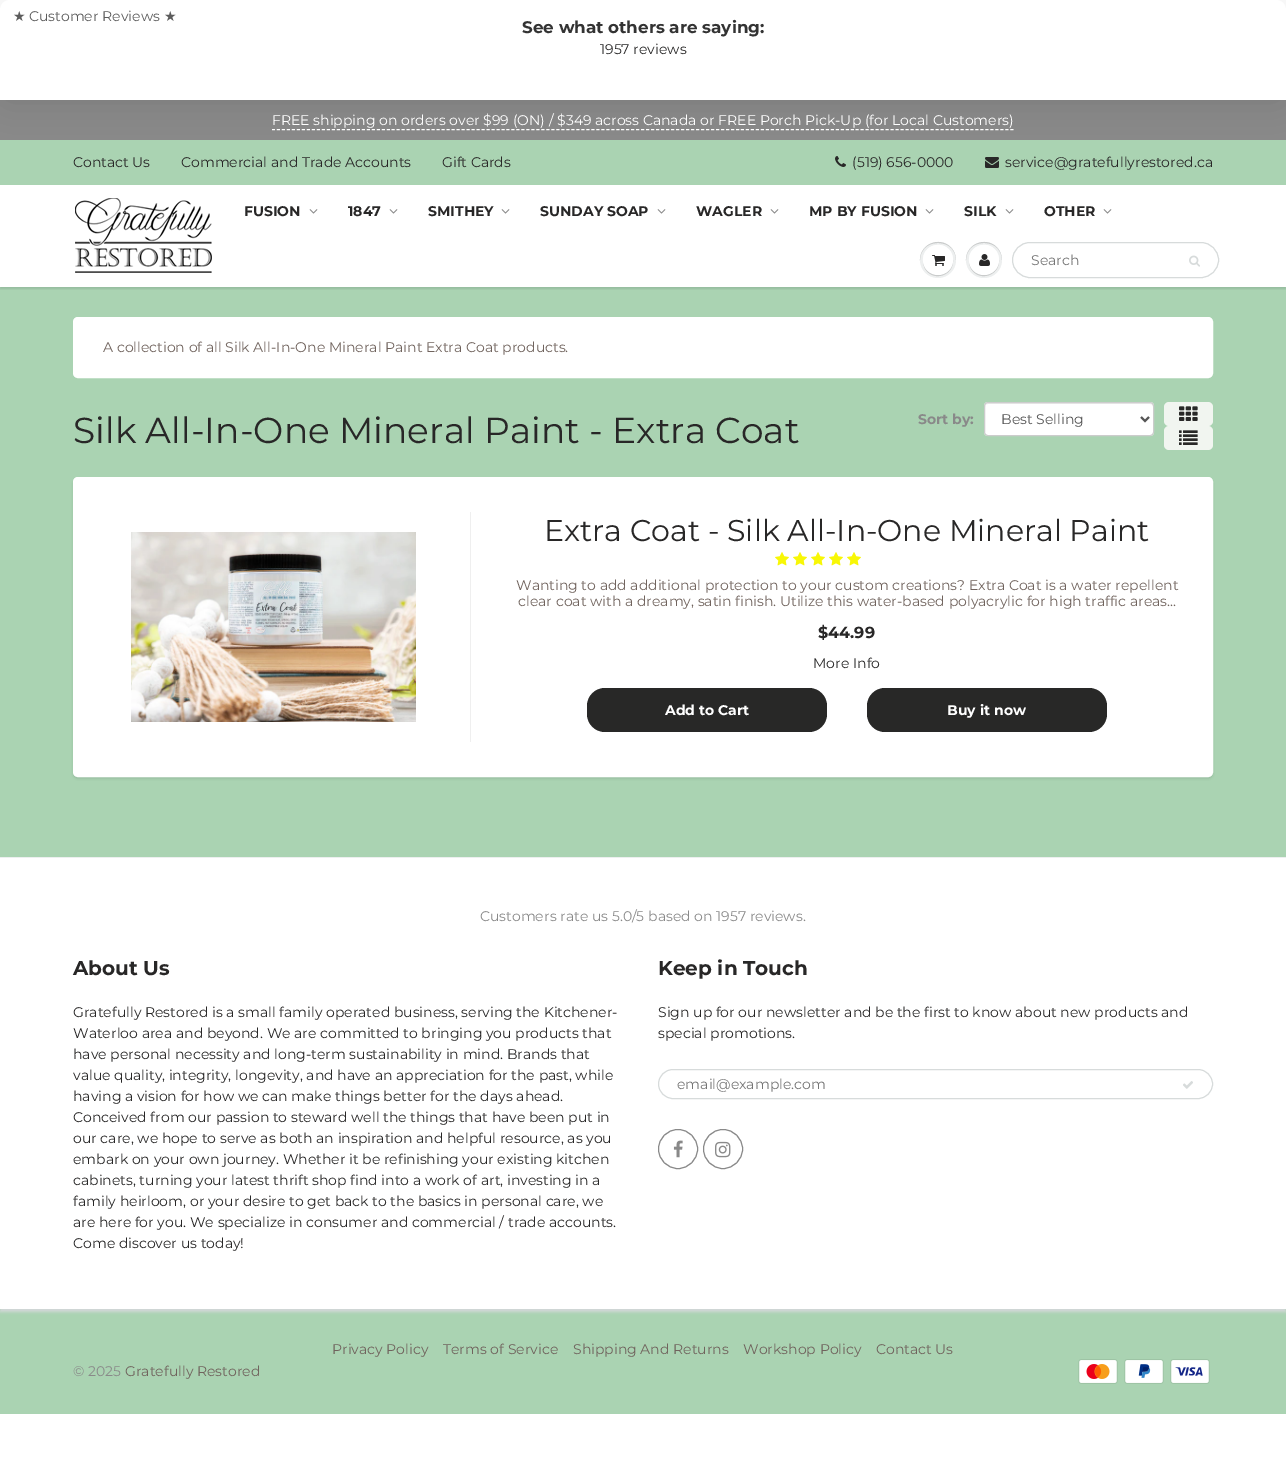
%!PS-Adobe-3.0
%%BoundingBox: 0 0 1286 1460
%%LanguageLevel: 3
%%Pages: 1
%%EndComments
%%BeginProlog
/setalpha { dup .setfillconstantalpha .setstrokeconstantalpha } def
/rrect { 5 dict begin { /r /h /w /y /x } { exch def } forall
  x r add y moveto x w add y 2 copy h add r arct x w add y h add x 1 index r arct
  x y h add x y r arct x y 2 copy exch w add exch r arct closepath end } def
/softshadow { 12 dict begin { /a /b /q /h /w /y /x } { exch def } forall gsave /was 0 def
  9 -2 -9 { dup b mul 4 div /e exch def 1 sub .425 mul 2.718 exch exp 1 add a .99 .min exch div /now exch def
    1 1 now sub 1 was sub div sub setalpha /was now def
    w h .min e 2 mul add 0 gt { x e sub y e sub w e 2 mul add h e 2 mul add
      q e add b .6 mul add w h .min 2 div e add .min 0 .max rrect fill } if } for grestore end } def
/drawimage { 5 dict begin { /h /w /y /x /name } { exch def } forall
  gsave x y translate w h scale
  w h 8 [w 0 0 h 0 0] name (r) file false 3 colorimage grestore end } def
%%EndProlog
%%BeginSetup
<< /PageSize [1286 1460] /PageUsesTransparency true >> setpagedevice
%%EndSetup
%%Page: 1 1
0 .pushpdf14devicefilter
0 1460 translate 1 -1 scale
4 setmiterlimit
1 setgray
0 0 1286 1460 rectfill
0.537 setgray
0 100 1286 40 rectfill
1 setgray
[3 1.99] 0 setdash
newpath 272 129.5 moveto 1014 129.5 lineto stroke
0.667 0.827 0.698 setrgbcolor
0 140 1286 44 rectfill
0 setgray
0 1 1286 100 10 15 0.1 softshadow
1 setgray
newpath 10 0 moveto 1276 0 lineto 1281.5 0 1286 4.5 1286 10 curveto 1286 100 lineto 0 100 lineto 0 10 lineto 0 4.5 4.5 0 10 0 curveto closepath fill
(images/1.raw) 835 156 11 11 drawimage
(images/2.raw) 985 157 14 11 drawimage
0.667 0.827 0.698 setrgbcolor
0 287 1286 570 rectfill
gsave
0 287 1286 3 rectclip
0.043 0.098 0.11 setrgbcolor
0 186 1286 103 0 1 0.12 softshadow
grestore
0 184 1286 1 rectfill
(images/3.raw) 75 198 137 75 drawimage
(images/4.raw) 309 209 9 5 drawimage
(images/4.raw) 389 209 9 5 drawimage
(images/4.raw) 501 209 9 5 drawimage
(images/4.raw) 657 209 9 5 drawimage
(images/4.raw) 770 209 9 5 drawimage
(images/4.raw) 925 209 9 5 drawimage
(images/4.raw) 1005 209 9 5 drawimage
(images/4.raw) 1103 209 9 5 drawimage
0.929 0.937 0.937 setrgbcolor
newpath 938 260 18 0 360 arc closepath fill
0.788 0.796 0.796 setrgbcolor
newpath 938 243 moveto 950 243 956 251.5 956 260.5 curveto 956 257 955 253 953 250 curveto 943 235 919.5 242.5 920 260.5 curveto 920 251.5 926 243 938 243 curveto closepath fill
newpath 953 260.5 moveto 952.5 279.5 923.5 279.5 923 260.5 curveto 923 263.5 924 267 925.5 269.5 curveto 934 282 953.5 275.5 953 260.5 curveto closepath fill
1 setgray
newpath 938 260 15 0 360 arc closepath fill
newpath 938 246 moveto 948 246 953 253 953 260.5 curveto 953 257.5 952 254 950.5 251.5 curveto 942 239 922.5 245.5 923 260.5 curveto 923 253 928 246 938 246 curveto closepath fill
(images/5.raw) 932 255 13 11 drawimage
0.929 0.937 0.937 setrgbcolor
newpath 984 260 18 0 360 arc closepath fill
0.788 0.796 0.796 setrgbcolor
newpath 984 243 moveto 996 243 1002 251.5 1002 260.5 curveto 1002 257 1001 253 999 250 curveto 989 235 965.5 242.5 966 260.5 curveto 966 251.5 972 243 984 243 curveto closepath fill
newpath 999 260.5 moveto 998.5 279.5 969.5 279.5 969 260.5 curveto 969 263.5 970 267 971.5 269.5 curveto 980 282 999.5 275.5 999 260.5 curveto closepath fill
1 setgray
newpath 984 260 15 0 360 arc closepath fill
newpath 984 246 moveto 994 246 999 253 999 260.5 curveto 999 257.5 998 254 996.5 251.5 curveto 988 239 968.5 245.5 969 260.5 curveto 969 253 974 246 984 246 curveto closepath fill
(images/6.raw) 979 254 11 12 drawimage
0.843 0.859 0.859 setrgbcolor
[] 0 setdash
1012.5 242.5 206 35 17.5 rrect stroke
(images/7.raw) 1189 255 11 12 drawimage
1 setgray
5 setlinewidth
75.5 319.5 1135 56 2.5 rrect stroke
78 322 1130 51 rectfill
984 402 170 34 4 rrect fill
0.925 setgray
newpath 988 404 moveto 1150 404 lineto 1152 404 1153 405 1153 407 curveto 1153 406 lineto 1153 404 1152 403 1150 403 curveto 988 403 lineto 986 403 985 404 985 406 curveto 985 407 lineto 985 405 986 404 988 404 curveto closepath fill
0.8 setgray
1 setlinewidth
984.5 402.5 169 33 3.5 rrect stroke
0.333 setgray
2 setlinewidth
newpath 1141 417 moveto 1145 421 lineto 1149 417 lineto stroke
0.945 0.961 0.941 setrgbcolor
1164 402 49 24 5 rrect fill
(images/8.raw) 1179 406 19 15 drawimage
1164 426 49 24 5 rrect fill
(images/9.raw) 1179 430 19 15 drawimage
0.043 0.098 0.11 setrgbcolor
73 479 1140 300 5 1 0.1 softshadow
1 setgray
75.5 479.5 1135 295 2.5 rrect gsave fill grestore
5 setlinewidth
stroke
(images/10.raw) 131 532 285 190 drawimage
0.937 setgray
470 512 1 230 rectfill
(images/11.raw) 775 552 14 14 drawimage
(images/11.raw) 793 552 14 14 drawimage
(images/11.raw) 811 552 14 14 drawimage
(images/11.raw) 829 552 14 14 drawimage
(images/11.raw) 847 552 14 14 drawimage
0.157 0.157 0.153 setrgbcolor
587 688 240 44 18 rrect fill
867 688 240 44 18 rrect fill
0.667 0.827 0.698 setrgbcolor
0 1309 1286 105 rectfill
gsave
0 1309 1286 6 rectclip
0.82 0.843 0.843 setrgbcolor
0 860 1286 452 0 1.5 1 softshadow
grestore
0.925 0.937 0.937 setrgbcolor
0 857 1286 1 rectfill
0.843 0.859 0.859 setrgbcolor
1 setlinewidth
658.5 1069.5 554 29 14.5 rrect stroke
(images/12.raw) 1183 1081 10 8 drawimage
0.537 setgray
newpath 678 1149 19.5 0 360 arc closepath stroke
(images/13.raw) 673 1140 10 18 drawimage
newpath 723 1149 19.5 0 360 arc closepath stroke
(images/14.raw) 715 1141 16 17 drawimage
(images/15.raw) 1078 1359 40 25 drawimage
(images/16.raw) 1124 1359 40 25 drawimage
(images/17.raw) 1170 1359 40 25 drawimage
/DejaVuSans-Regular [14 0 0 -14 0 0] selectfont
0.361 setgray
13 21 moveto (★) show
/Montserrat-Regular [14 0 0 -14 0 0] selectfont
29 21 moveto (Customer Reviews) show
/DejaVuSans-Regular [14 0 0 -14 0 0] selectfont
164 21 moveto (★) show
/Montserrat-Bold [16.75 0 0 -16.75 0 0] selectfont
0.2 setgray
522 33 moveto (See what others are saying:) show
/Montserrat-Regular [14 0 0 -14 0 0] selectfont
0.157 0.153 0.153 setrgbcolor
600 54 moveto (1957 reviews) show
1 setgray
272 125 moveto (FREE shipping on orders over $99 \(ON\) / $349 across Canada or FREE Porch Pick-Up \(for Local Customers\)) show
0.157 0.153 0.153 setrgbcolor
73 167 moveto (Contact Us) show
181 167 moveto (Commercial and Trade Accounts) show
442 167 moveto (Gift Cards) show
852 167 moveto (\(519\) 656-0000) show
1005 167 moveto (service@gratefullyrestored.ca) show
/Montserrat-Bold [14 0 0 -14 0 0] selectfont
244 216 moveto (FUSION) show
348 216 moveto (1847) show
428 216 moveto (SMITHEY) show
540 216 moveto (SUNDAY SOAP) show
696 216 moveto (WAGLER) show
809 216 moveto (MP BY FUSION) show
964 216 moveto (SILK) show
1044 216 moveto (OTHER) show
/Montserrat-Regular [14 0 0 -14 0 0] selectfont
0.459 setgray
1031 265 moveto (Search) show
0.439 0.388 0.365 setrgbcolor
103 352 moveto (A collection of all Silk All-In-One Mineral Paint Extra Coat products.) show
/Montserrat-Regular [36 0 0 -36 0 0] selectfont
0.157 0.153 0.153 setrgbcolor
73 443 moveto (Silk All-In-One Mineral Paint - Extra Coat) show
/Montserrat-Bold [14 0 0 -14 0 0] selectfont
0.537 setgray
918 424 moveto (Sort by:) show
/Montserrat-Regular [14 0 0 -14 0 0] selectfont
0.333 setgray
1001 424 moveto (Best Selling) show
/Montserrat-Regular [30 0 0 -30 0 0] selectfont
0.157 0.153 0.153 setrgbcolor
544 541 moveto (Extra Coat - Silk All-In-One Mineral Paint) show
/Montserrat-Regular [14 0 0 -14 0 0] selectfont
0.439 0.388 0.365 setrgbcolor
516 590 moveto (Wanting to add additional protection to your custom creations? Extra Coat is a water repellent) show
518 606 moveto (clear coat with a dreamy, satin finish. Utilize this water-based polyacrylic for high traffic areas...) show
/Montserrat-Bold [16 0 0 -16 0 0] selectfont
0.157 0.153 0.153 setrgbcolor
818 638 moveto ($44.99) show
/Montserrat-Regular [14 0 0 -14 0 0] selectfont
813 668 moveto (More Info) show
/Montserrat-Bold [14 0 0 -14 0 0] selectfont
1 setgray
665 715 moveto (Add to Cart) show
947 715 moveto (Buy it now) show
/Montserrat-Regular [14 0 0 -14 0 0] selectfont
0.537 setgray
480 921 moveto (Customers rate us 5.0/5 based on 1957 reviews.) show
/Montserrat-Bold [20 0 0 -20 0 0] selectfont
0.157 0.153 0.153 setrgbcolor
73 975 moveto (About Us) show
/Montserrat-Regular [14 0 0 -14 0 0] selectfont
73 1017 moveto (Gratefully Restored is a small family operated business, serving the Kitchener-) show
73 1038 moveto (Waterloo area and beyond. We are committed to bringing you products that) show
73 1059 moveto (have personal necessity and long-term sustainability in mind. Brands that) show
73 1080 moveto (value quality, integrity, longevity, and have an appreciation for the past, while) show
73 1101 moveto (having a vision for how we can make things better for the days ahead.) show
73 1122 moveto (Conceived from our passion to steward well the things that have been put in) show
73 1143 moveto (our care, we hope to serve as both an inspiration and helpful resource, as you) show
73 1164 moveto (embark on your own journey. Whether it be refinishing your existing kitchen) show
73 1185 moveto (cabinets, turning your latest thrift shop find into a work of art, investing in a) show
73 1206 moveto (family heirloom, or your desire to get back to the basics in personal care, we) show
73 1227 moveto (are here for you. We specialize in consumer and commercial / trade accounts.) show
73 1248 moveto (Come discover us today!) show
/Montserrat-Bold [20 0 0 -20 0 0] selectfont
658 975 moveto (Keep in Touch) show
/Montserrat-Regular [14 0 0 -14 0 0] selectfont
658 1017 moveto (Sign up for our newsletter and be the first to know about new products and) show
658 1038 moveto (special promotions.) show
0.459 setgray
677 1089 moveto (email@example.com) show
0.439 0.388 0.365 setrgbcolor
332 1354 moveto (Privacy Policy) show
443 1354 moveto (Terms of Service) show
573 1354 moveto (Shipping And Returns) show
743 1354 moveto (Workshop Policy) show
876 1354 moveto (Contact Us) show
0.537 setgray
73 1376 moveto (© 2025) show
0.439 0.388 0.365 setrgbcolor
125 1376 moveto (Gratefully Restored) show
.poppdf14devicefilter showpage
%%EOF
